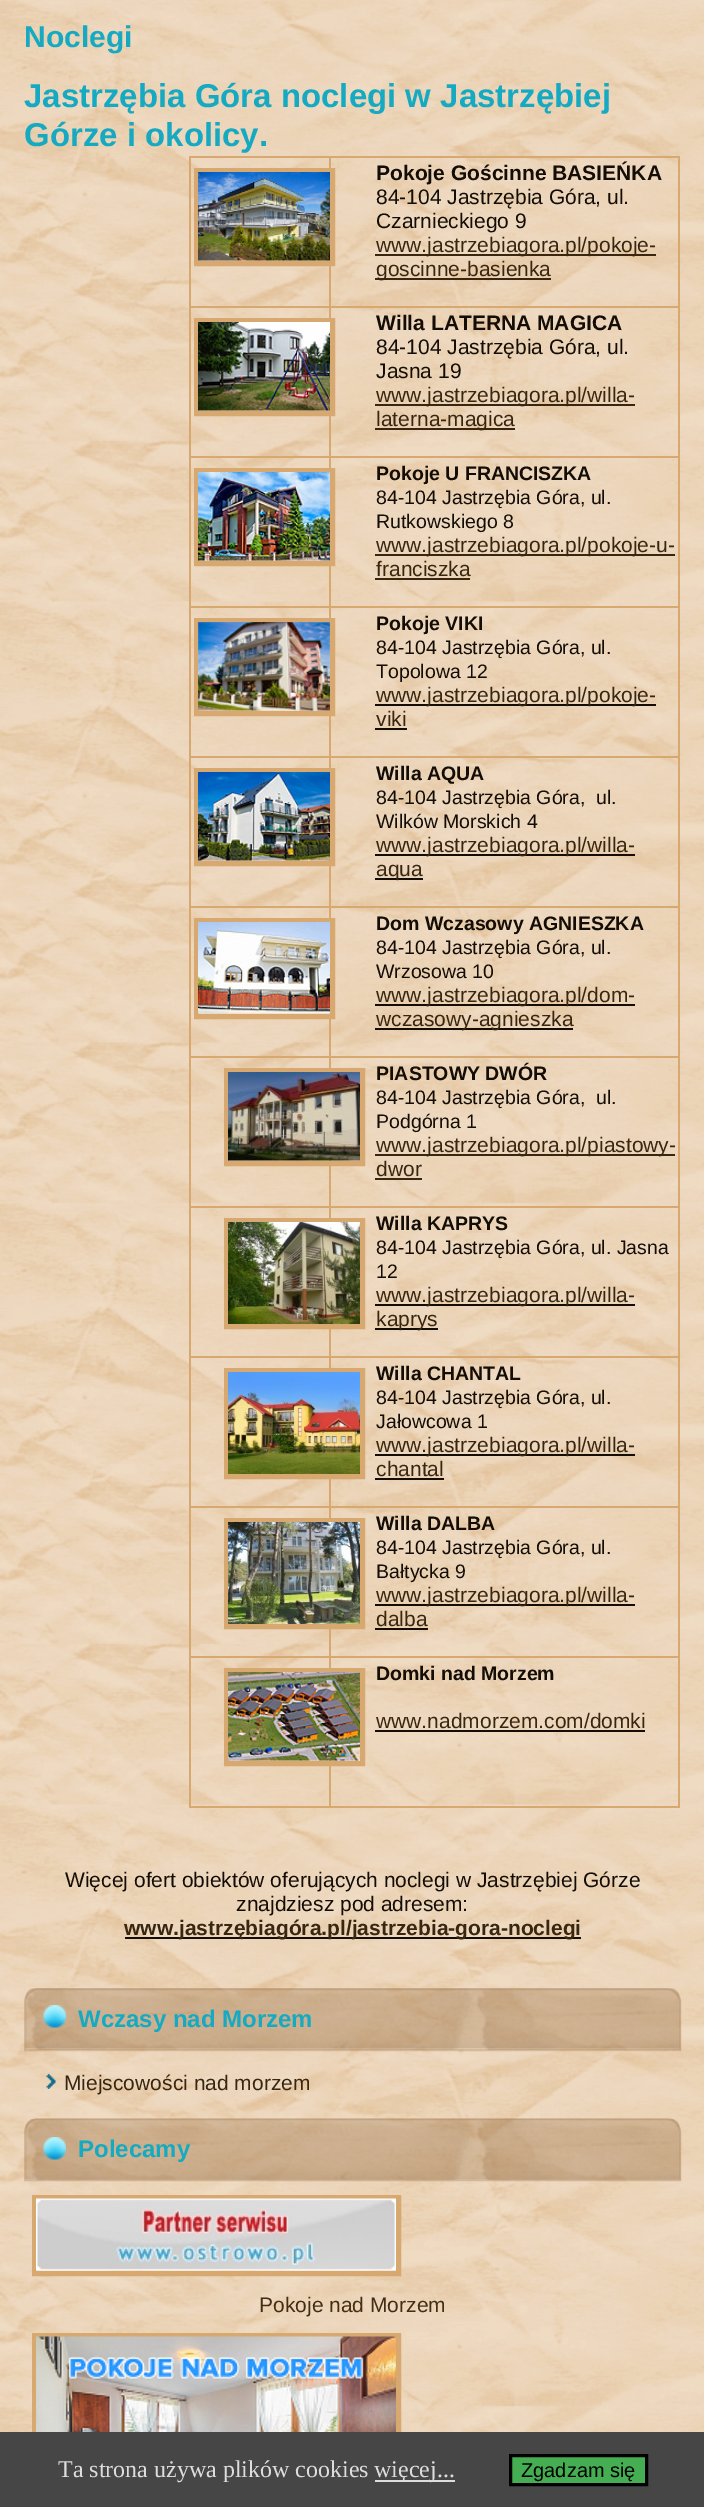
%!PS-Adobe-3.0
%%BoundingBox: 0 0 704 2507
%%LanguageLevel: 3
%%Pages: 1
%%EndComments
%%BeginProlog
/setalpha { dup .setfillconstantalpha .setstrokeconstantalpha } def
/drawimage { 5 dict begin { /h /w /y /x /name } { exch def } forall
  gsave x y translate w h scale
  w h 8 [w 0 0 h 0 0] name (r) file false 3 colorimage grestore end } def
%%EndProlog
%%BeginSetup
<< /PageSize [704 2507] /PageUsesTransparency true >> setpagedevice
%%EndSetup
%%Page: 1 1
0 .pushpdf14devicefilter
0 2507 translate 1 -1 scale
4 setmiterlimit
0.922 0.831 0.718 setrgbcolor
0 0 704 2507 rectfill
(images/1.raw) 0 0 704 2432 drawimage
0.843 0.659 0.439 setrgbcolor
329 156 351 2 rectfill
5 setlinewidth
196.5 170.5 136 93 rectstroke
329 306 351 2 rectfill
196.5 320.5 136 93 rectstroke
329 456 351 2 rectfill
196.5 470.5 136 93 rectstroke
329 606 351 2 rectfill
196.5 620.5 136 93 rectstroke
329 756 351 2 rectfill
196.5 770.5 136 93 rectstroke
329 906 351 2 rectfill
196.5 920.5 136 96 rectstroke
329 1056 351 2 rectfill
329 1206 351 2 rectfill
329 1356 351 2 rectfill
329 1506 351 2 rectfill
329 1656 351 2 rectfill
678 1656 2 152 rectfill
329 1806 351 2 rectfill
329 1656 2 152 rectfill
189 1656 141 2 rectfill
329 1506 2 152 rectfill
189 1506 141 2 rectfill
329 1356 2 152 rectfill
189 1356 141 2 rectfill
329 1206 2 152 rectfill
189 1206 141 2 rectfill
329 1056 2 152 rectfill
189 1056 141 2 rectfill
329 906 2 152 rectfill
189 906 141 2 rectfill
329 756 2 152 rectfill
189 756 141 2 rectfill
329 606 2 152 rectfill
189 606 141 2 rectfill
329 456 2 152 rectfill
189 456 141 2 rectfill
329 306 2 152 rectfill
189 306 141 2 rectfill
329 156 2 152 rectfill
189 156 141 2 rectfill
189 1806 141 2 rectfill
189 1656 2 152 rectfill
189 1506 2 152 rectfill
189 1356 2 152 rectfill
189 1206 2 152 rectfill
189 1056 2 152 rectfill
189 906 2 152 rectfill
189 756 2 152 rectfill
189 606 2 152 rectfill
189 456 2 152 rectfill
189 306 2 152 rectfill
189 156 2 152 rectfill
(images/2.raw) 198 172 132 89 drawimage
678 1506 2 152 rectfill
678 1356 2 152 rectfill
678 1206 2 152 rectfill
678 1056 2 152 rectfill
678 906 2 152 rectfill
678 756 2 152 rectfill
678 606 2 152 rectfill
678 456 2 152 rectfill
678 306 2 152 rectfill
678 156 2 152 rectfill
0.22 0.149 0.063 setrgbcolor
375 254 281 2 rectfill
375 278 176 2 rectfill
(images/3.raw) 198 322 132 89 drawimage
375 404 260 2 rectfill
375 428 140 2 rectfill
(images/4.raw) 198 472 132 89 drawimage
375 554 300 2 rectfill
375 578 95 2 rectfill
(images/5.raw) 198 622 132 89 drawimage
0.078 0.051 0.024 setrgbcolor
375 704 281 2 rectfill
375 728 32 2 rectfill
(images/6.raw) 198 772 132 89 drawimage
375 854 260 2 rectfill
375 878 48 2 rectfill
(images/7.raw) 198 922 132 92 drawimage
375 1004 260 2 rectfill
375 1028 198 2 rectfill
0.843 0.659 0.439 setrgbcolor
226.5 1070.5 136 93 rectstroke
(images/8.raw) 228 1072 132 89 drawimage
0.22 0.149 0.063 setrgbcolor
375 1154 300 2 rectfill
375 1178 47 2 rectfill
0.843 0.659 0.439 setrgbcolor
226.5 1220.5 136 106 rectstroke
(images/9.raw) 228 1222 132 102 drawimage
0.078 0.051 0.024 setrgbcolor
375 1304 260 2 rectfill
375 1328 63 2 rectfill
0.843 0.659 0.439 setrgbcolor
226.5 1370.5 136 106 rectstroke
(images/10.raw) 228 1372 132 102 drawimage
0.078 0.051 0.024 setrgbcolor
375 1454 260 2 rectfill
375 1478 69 2 rectfill
0.843 0.659 0.439 setrgbcolor
226.5 1520.5 136 106 rectstroke
(images/11.raw) 228 1522 132 102 drawimage
0.078 0.051 0.024 setrgbcolor
375 1604 260 2 rectfill
375 1628 53 2 rectfill
0.843 0.659 0.439 setrgbcolor
226.5 1670.5 136 93 rectstroke
(images/12.raw) 228 1672 132 89 drawimage
0.078 0.051 0.024 setrgbcolor
375 1730 270 2 rectfill
125 1937 456 2 rectfill
(images/13.raw) 24 1987 657 63 drawimage
0.3 setalpha
0.608 0.451 0.294 setrgbcolor
2 setlinewidth
newpath 38 1989 moveto 667 1989 lineto 674 1989 680 1995 680 2002 curveto 680 2050 lineto 25 2050 lineto 25 2002 lineto 25 1995 31 1989 38 1989 curveto closepath stroke
1 setalpha
(images/14.raw) 43 2005 23 23 drawimage
(images/15.raw) 46 2074 10 15 drawimage
(images/16.raw) 24 2118 657 63 drawimage
0.3 setalpha
newpath 38 2119 moveto 667 2119 lineto 674 2119 680 2125 680 2132 curveto 680 2180 lineto 25 2180 lineto 25 2132 lineto 25 2125 31 2119 38 2119 curveto closepath stroke
1 setalpha
(images/17.raw) 43 2137 23 23 drawimage
0.843 0.659 0.439 setrgbcolor
5 setlinewidth
34.5 2197.5 364 76 rectstroke
(images/18.raw) 36 2198 360 73 drawimage
34.5 2335.5 364 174 rectstroke
(images/19.raw) 36 2336 360 96 drawimage
0.275 setgray
0 2432 704 75 rectfill
0.867 setgray
375 2480 80 2 rectfill
0.271 0.682 0.322 setrgbcolor
newpath 510.5 2455.5 moveto 646.5 2455.5 lineto 646.5 2484.5 lineto 510.5 2484.5 lineto closepath gsave fill grestore
0 setgray
3 setlinewidth
stroke
/LiberationSans-Bold [30 0 0 -30 0 0] selectfont
0.082 0.667 0.757 setrgbcolor
24 47 moveto (Noclegi) show
/LiberationSans-Bold [33 0 0 -33 0 0] selectfont
24 107 moveto (Jastrzębia Góra noclegi w Jastrzębiej) show
24 146 moveto (Górze i okolicy.) show
/LiberationSans-Bold [21 0 0 -21 0 0] selectfont
0.078 0.051 0.024 setrgbcolor
376 180 moveto (Pokoje Gościnne BASIEŃKA) show
/LiberationSans-Regular [21 0 0 -21 0 0] selectfont
376 204 moveto (84-104 Jastrzębia Góra, ul.) show
376 228 moveto (Czarnieckiego 9) show
0.22 0.149 0.063 setrgbcolor
376 252 moveto (www.jastrzebiagora.pl/pokoje-) show
376 276 moveto (goscinne-basienka) show
/LiberationSans-Bold [21 0 0 -21 0 0] selectfont
0.078 0.051 0.024 setrgbcolor
376 330 moveto (Willa LATERNA MAGICA) show
/LiberationSans-Regular [21 0 0 -21 0 0] selectfont
376 354 moveto (84-104 Jastrzębia Góra, ul.) show
376 378 moveto (Jasna 19) show
0.22 0.149 0.063 setrgbcolor
376 402 moveto (www.jastrzebiagora.pl/willa-) show
376 426 moveto (laterna-magica) show
/LiberationSans-Bold [19.5 0 0 -19.5 0 0] selectfont
0.078 0.051 0.024 setrgbcolor
376 480 moveto (Pokoje U FRANCISZKA) show
/LiberationSans-Regular [19.5 0 0 -19.5 0 0] selectfont
376 504 moveto (84-104 Jastrzębia Góra, ul.) show
376 528 moveto (Rutkowskiego 8) show
/LiberationSans-Regular [21 0 0 -21 0 0] selectfont
0.22 0.149 0.063 setrgbcolor
376 552 moveto (www.jastrzebiagora.pl/pokoje-u-) show
376 576 moveto (franciszka) show
/LiberationSans-Bold [19.5 0 0 -19.5 0 0] selectfont
0.078 0.051 0.024 setrgbcolor
376 630 moveto (Pokoje VIKI) show
/LiberationSans-Regular [19.5 0 0 -19.5 0 0] selectfont
376 654 moveto (84-104 Jastrzębia Góra, ul.) show
376 678 moveto (Topolowa 12) show
/LiberationSans-Regular [21 0 0 -21 0 0] selectfont
0.22 0.149 0.063 setrgbcolor
376 702 moveto (www.jastrzebiagora.pl/pokoje-) show
376 726 moveto (viki) show
/LiberationSans-Bold [19.5 0 0 -19.5 0 0] selectfont
0.078 0.051 0.024 setrgbcolor
376 780 moveto (Willa AQUA) show
/LiberationSans-Regular [19.5 0 0 -19.5 0 0] selectfont
376 804 moveto (84-104 Jastrzębia Góra,  ul.) show
376 828 moveto (Wilków Morskich 4) show
/LiberationSans-Regular [21 0 0 -21 0 0] selectfont
0.22 0.149 0.063 setrgbcolor
376 852 moveto (www.jastrzebiagora.pl/willa-) show
376 876 moveto (aqua) show
/LiberationSans-Bold [19.5 0 0 -19.5 0 0] selectfont
0.078 0.051 0.024 setrgbcolor
376 930 moveto (Dom Wczasowy AGNIESZKA) show
/LiberationSans-Regular [19.5 0 0 -19.5 0 0] selectfont
376 954 moveto (84-104 Jastrzębia Góra, ul.) show
376 978 moveto (Wrzosowa 10) show
/LiberationSans-Regular [21 0 0 -21 0 0] selectfont
0.22 0.149 0.063 setrgbcolor
376 1002 moveto (www.jastrzebiagora.pl/dom-) show
376 1026 moveto (wczasowy-agnieszka) show
/LiberationSans-Bold [19.5 0 0 -19.5 0 0] selectfont
0.078 0.051 0.024 setrgbcolor
376 1080 moveto (PIASTOWY DWÓR) show
/LiberationSans-Regular [19.5 0 0 -19.5 0 0] selectfont
376 1104 moveto (84-104 Jastrzębia Góra,  ul.) show
376 1128 moveto (Podgórna 1) show
/LiberationSans-Regular [21 0 0 -21 0 0] selectfont
0.22 0.149 0.063 setrgbcolor
376 1152 moveto (www.jastrzebiagora.pl/piastowy-) show
376 1176 moveto (dwor) show
/LiberationSans-Bold [19.5 0 0 -19.5 0 0] selectfont
0.078 0.051 0.024 setrgbcolor
376 1230 moveto (Willa KAPRYS) show
/LiberationSans-Regular [19.5 0 0 -19.5 0 0] selectfont
376 1254 moveto (84-104 Jastrzębia Góra, ul. Jasna) show
376 1278 moveto (12) show
/LiberationSans-Regular [21 0 0 -21 0 0] selectfont
0.22 0.149 0.063 setrgbcolor
376 1302 moveto (www.jastrzebiagora.pl/willa-) show
376 1326 moveto (kaprys) show
/LiberationSans-Bold [19.5 0 0 -19.5 0 0] selectfont
0.078 0.051 0.024 setrgbcolor
376 1380 moveto (Willa CHANTAL) show
/LiberationSans-Regular [19.5 0 0 -19.5 0 0] selectfont
376 1404 moveto (84-104 Jastrzębia Góra, ul.) show
376 1428 moveto (Jałowcowa 1) show
/LiberationSans-Regular [21 0 0 -21 0 0] selectfont
0.22 0.149 0.063 setrgbcolor
376 1452 moveto (www.jastrzebiagora.pl/willa-) show
376 1476 moveto (chantal) show
/LiberationSans-Bold [19.5 0 0 -19.5 0 0] selectfont
0.078 0.051 0.024 setrgbcolor
376 1530 moveto (Willa DALBA) show
/LiberationSans-Regular [19.5 0 0 -19.5 0 0] selectfont
376 1554 moveto (84-104 Jastrzębia Góra, ul.) show
376 1578 moveto (Bałtycka 9) show
/LiberationSans-Regular [21 0 0 -21 0 0] selectfont
0.22 0.149 0.063 setrgbcolor
376 1602 moveto (www.jastrzebiagora.pl/willa-) show
376 1626 moveto (dalba) show
/LiberationSans-Bold [19.5 0 0 -19.5 0 0] selectfont
0.078 0.051 0.024 setrgbcolor
376 1680 moveto (Domki nad Morzem) show
/LiberationSans-Regular [21 0 0 -21 0 0] selectfont
0.22 0.149 0.063 setrgbcolor
376 1728 moveto (www.nadmorzem.com/domki) show
0.078 0.051 0.024 setrgbcolor
65 1887 moveto (Więcej ofert obiektów oferujących noclegi w Jastrzębiej Górze) show
236 1911 moveto (znajdziesz pod adresem:) show
/LiberationSans-Bold [21 0 0 -21 0 0] selectfont
0.22 0.149 0.063 setrgbcolor
124 1935 moveto (www.jastrzębiagóra.pl/jastrzebia-gora-noclegi) show
/LiberationSans-Bold [24 0 0 -24 0 0] selectfont
0.082 0.667 0.757 setrgbcolor
78 2027 moveto (Wczasy nad Morzem) show
/LiberationSans-Regular [21 0 0 -21 0 0] selectfont
0.22 0.149 0.063 setrgbcolor
64 2090 moveto (Miejscowości nad morzem) show
/LiberationSans-Bold [24 0 0 -24 0 0] selectfont
0.082 0.667 0.757 setrgbcolor
78 2157 moveto (Polecamy) show
/LiberationSans-Regular [21 0 0 -21 0 0] selectfont
0.267 0.18 0.075 setrgbcolor
259 2312 moveto (Pokoje nad Morzem) show
/LiberationSerif-Regular [24 0 0 -24 0 0] selectfont
0.867 setgray
58 2477 moveto (Ta strona używa plików cookies) show
374 2477 moveto (więcej...) show
/LiberationSans-Regular [20 0 0 -20 0 0] selectfont
0 setgray
521 2477 moveto (Zgadzam się) show
.poppdf14devicefilter showpage
%%EOF
